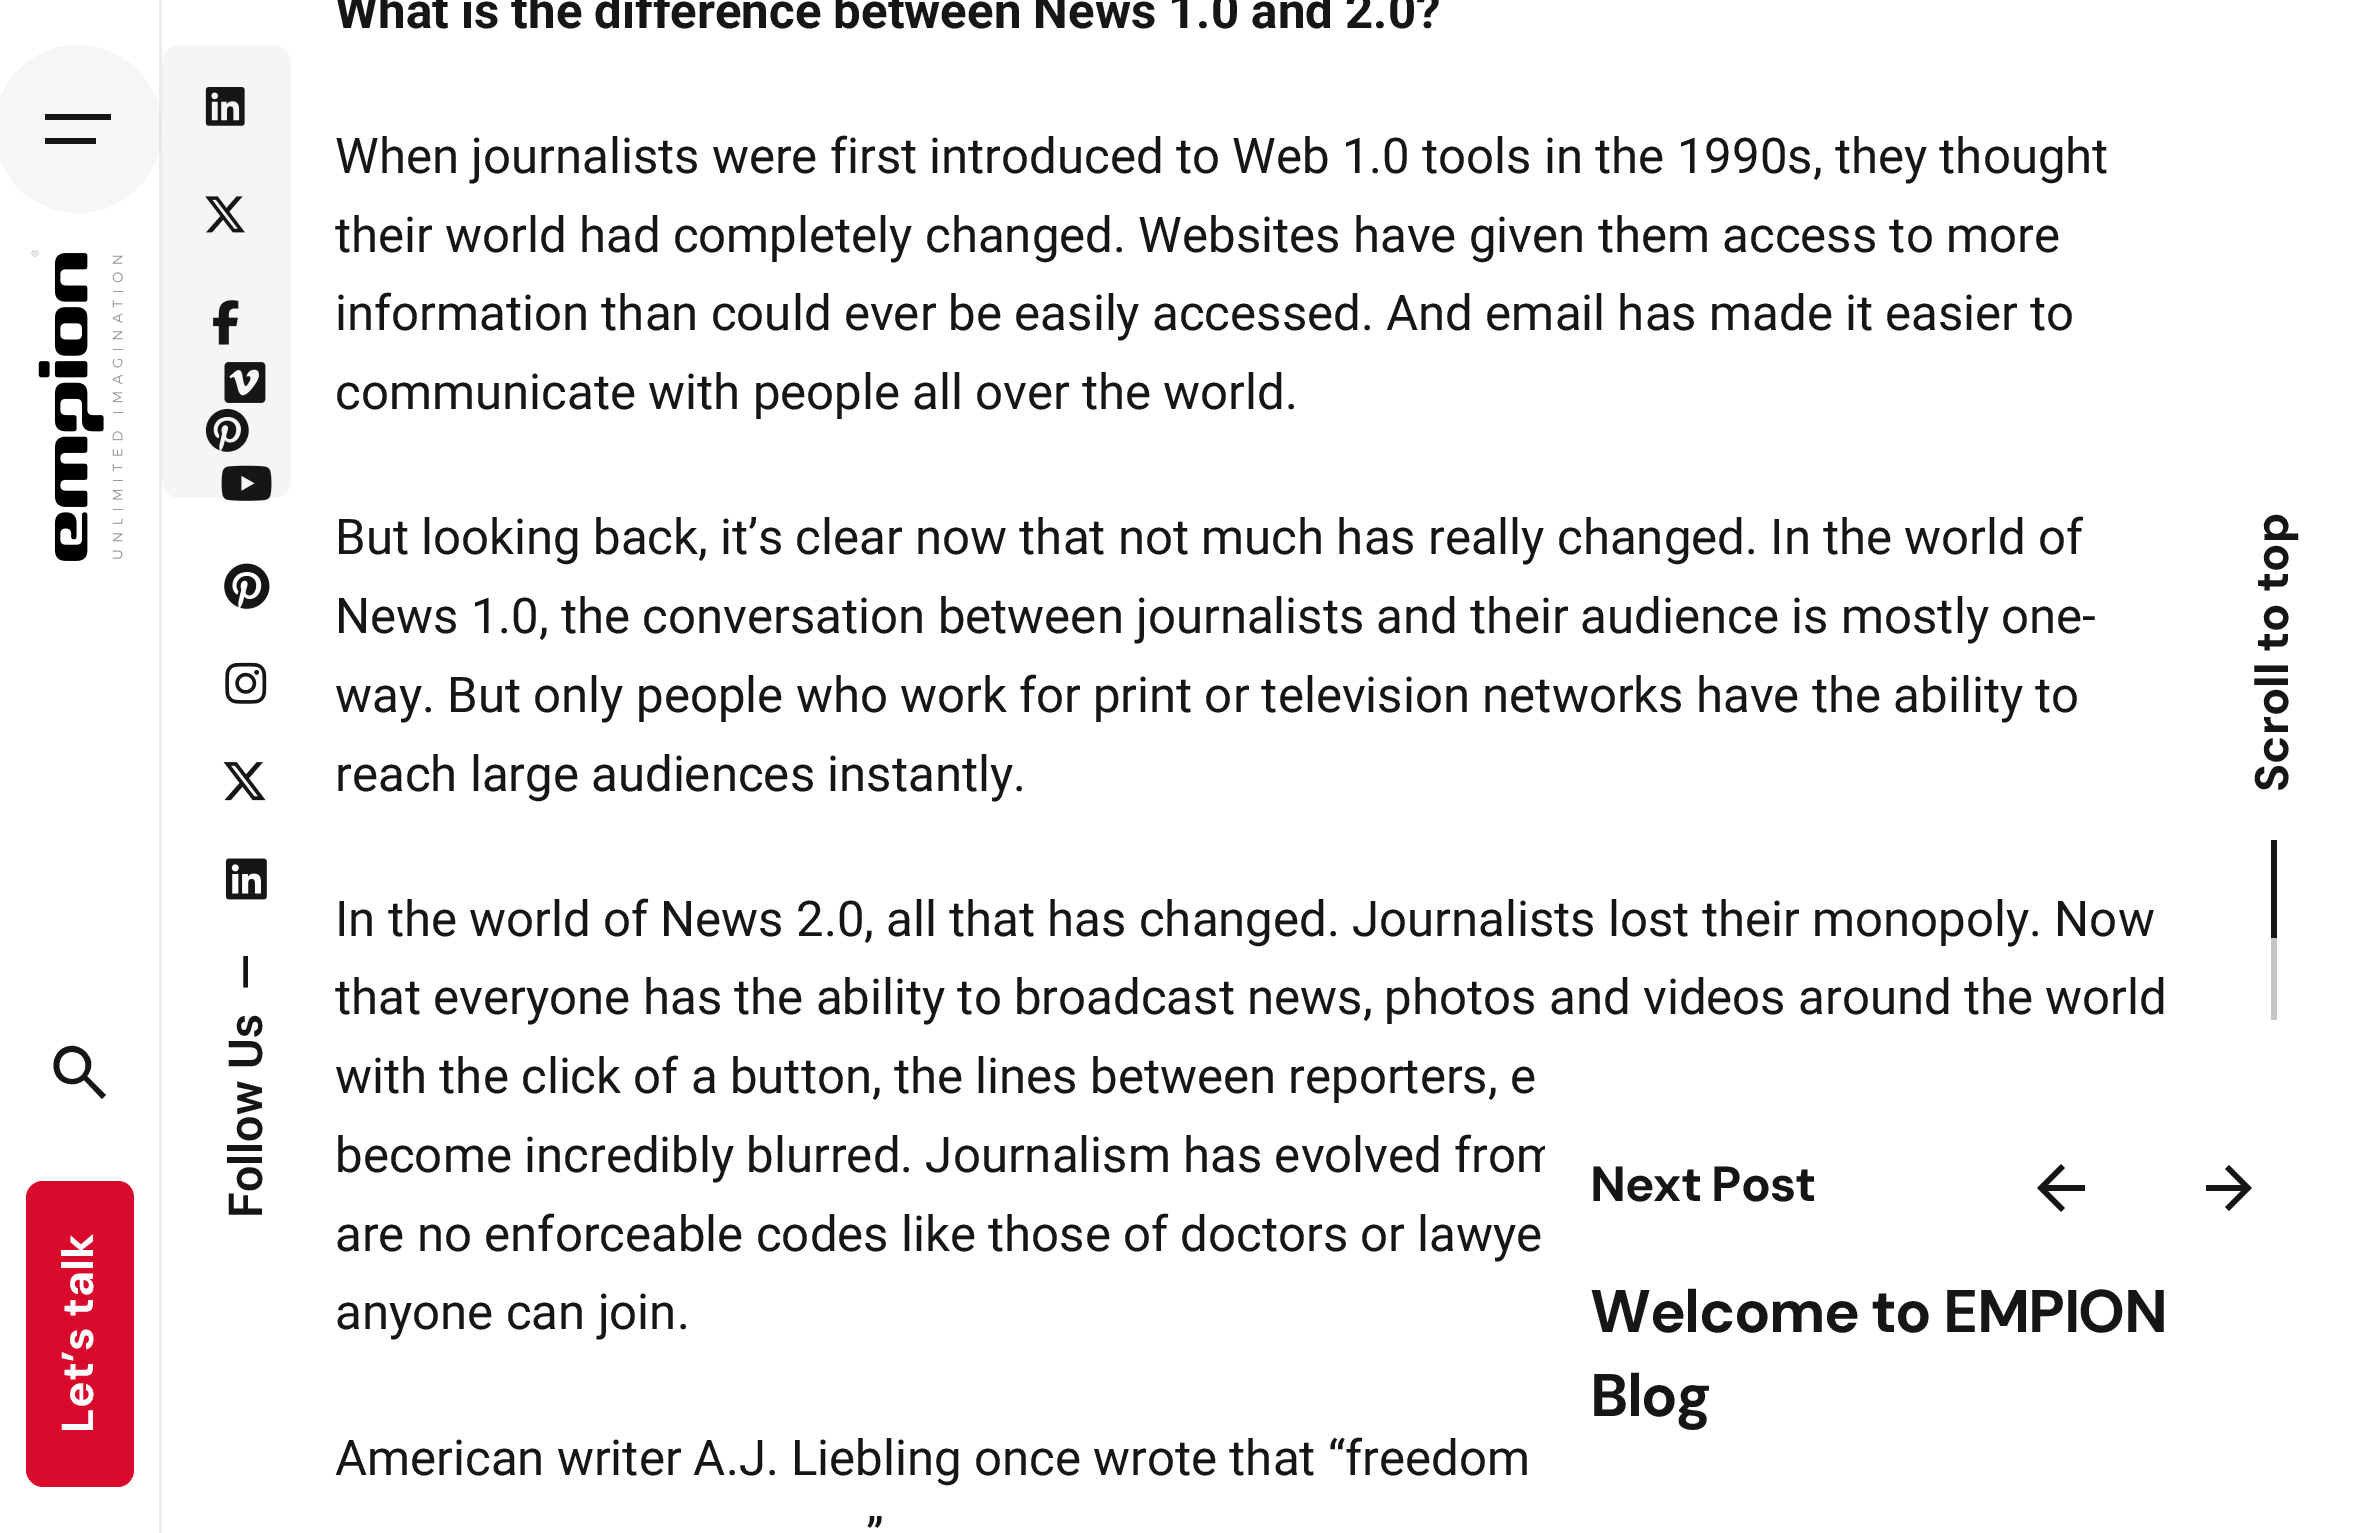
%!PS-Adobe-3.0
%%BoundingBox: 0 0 2356 1533
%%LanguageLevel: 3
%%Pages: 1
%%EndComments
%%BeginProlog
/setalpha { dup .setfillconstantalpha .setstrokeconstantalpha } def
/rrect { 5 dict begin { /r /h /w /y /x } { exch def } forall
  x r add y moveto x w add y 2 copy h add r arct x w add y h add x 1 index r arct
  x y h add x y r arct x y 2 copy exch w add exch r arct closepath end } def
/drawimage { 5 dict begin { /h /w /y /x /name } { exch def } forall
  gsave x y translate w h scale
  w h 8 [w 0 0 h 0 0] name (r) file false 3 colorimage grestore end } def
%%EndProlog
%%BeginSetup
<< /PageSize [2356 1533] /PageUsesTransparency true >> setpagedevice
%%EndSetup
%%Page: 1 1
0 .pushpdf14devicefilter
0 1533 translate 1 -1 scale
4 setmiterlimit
1 setgray
0 0 2356 1533 rectfill
0.961 0.961 0.965 setrgbcolor
162 45 129 453 18 rrect fill
(images/1.raw) 205 87 40 39 drawimage
(images/2.raw) 205 196 40 37 drawimage
(images/3.raw) 213 300 26 45 drawimage
(images/4.raw) 205 408 44 44 drawimage
0.086 0.082 0.094 setrgbcolor
2271 840 6 98 rectfill
0.773 setgray
2271 938 6 82 rectfill
(images/5.raw) 224 362 42 41 drawimage
(images/6.raw) 221 465 51 36 drawimage
(images/7.raw) 224 563 46 46 drawimage
(images/8.raw) 225 662 42 42 drawimage
(images/9.raw) 223 762 43 39 drawimage
(images/10.raw) 225 858 42 42 drawimage
0.925 setgray
159 0 3 1533 rectfill
0.08 setalpha
0.533 0.533 0.537 setrgbcolor
newpath 78 129 84 0 360 arc closepath fill
1 setalpha
0.086 0.082 0.094 setrgbcolor
45 114 66 6 rectfill
45 138 51 6 rectfill
(images/11.raw) 31 250 92 311 drawimage
newpath 102 1099 moveto 84 1080 lineto 80 1083 75 1085 70 1084 curveto 46 1082 49 1044 74 1046 curveto 80 1047 85 1050 88 1055 curveto 93 1061 92 1070 87 1076 curveto 106 1095 lineto closepath 72 1079 moveto 90 1079 90 1052 72 1052 curveto 55 1052 55 1079 72 1079 curveto closepath fill
0.851 0.039 0.173 setrgbcolor
newpath 26 1470 moveto 26 1198 lineto 26 1188 34 1181 43 1181 curveto 118 1181 lineto 127 1181 134 1188 134 1198 curveto 134 1470 lineto 134 1479 127 1487 118 1487 curveto 43 1487 lineto 34 1487 26 1479 26 1470 curveto closepath fill
/Roboto-Bold [49.2 0 0 -49.2 0 0] selectfont
0.086 0.082 0.094 setrgbcolor
335 28 moveto (What is the difference between News 1.0 and 2.0?) show
/Roboto-Regular [49.2 0 0 -49.2 0 0] selectfont
335 173 moveto (When journalists were first introduced to Web 1.0 tools in the 1990s, they thought) show
335 252 moveto (their world had completely changed. Websites have given them access to more) show
335 330 moveto (information than could ever be easily accessed. And email has made it easier to) show
335 409 moveto (communicate with people all over the world.) show
335 554 moveto (But looking back, it’s clear now that not much has really changed. In the world of) show
335 633 moveto (News 1.0, the conversation between journalists and their audience is mostly one-) show
335 712 moveto (way. But only people who work for print or television networks have the ability to) show
335 791 moveto (reach large audiences instantly.) show
335 936 moveto (In the world of News 2.0, all that has changed. Journalists lost their monopoly. Now) show
335 1014 moveto (that everyone has the ability to broadcast news, photos and videos around the world) show
335 1093 moveto (with the click of a button, the lines between reporters, e) show
335 1172 moveto (become incredibly blurred. Journalism has evolved from) show
335 1251 moveto (are no enforceable codes like those of doctors or lawye) show
335 1329 moveto (anyone can join.) show
335 1475 moveto (American writer A.J. Liebling once wrote that “freedom) show
866 1553 moveto (”) show
1 setgray
1545 1056 768 432 18 rrect fill
/DMSans-Bold [49.2 0 0 -49.2 0 0] selectfont
0.086 0.082 0.094 setrgbcolor
1590 1201 moveto -1 0 (Next Post) ashow
newpath 2061 1212 moveto 2065 1208 lineto 2048 1191 lineto 2085 1191 lineto 2085 1185 lineto 2048 1185 lineto 2065 1168 lineto 2061 1164 lineto 2037 1188 lineto closepath fill
newpath 2241 1191 moveto 2206 1191 lineto 2206 1185 lineto 2241 1185 lineto 2225 1169 lineto 2229 1165 lineto 2252 1188 lineto 2229 1211 lineto 2225 1207 lineto closepath fill
/DMSans-Bold [60 0 0 -60 0 0] selectfont
1590 1332 moveto -1.5 0 (Welcome to EMPION) ashow
1590 1416 moveto -1.5 0 (Blog) ashow
/DMSans-Bold [46.75 0 0 -46.75 0 0] selectfont
gsave 2288 792 translate -90 rotate 0 0 moveto (Scroll to top) show grestore
/Roboto-SemiBold [46.75 0 0 -46.75 0 0] selectfont
gsave 262 990 translate -90 rotate 0 0 moveto (—) show grestore
gsave 262 1218 translate -90 rotate 0 0 moveto (Follow Us) show grestore
/DMSans-Bold [44.5 0 0 -44.5 0 0] selectfont
1 setgray
gsave 93 1433 translate -90 rotate 0 0 moveto (Let’s talk) show grestore
.poppdf14devicefilter showpage
%%EOF
